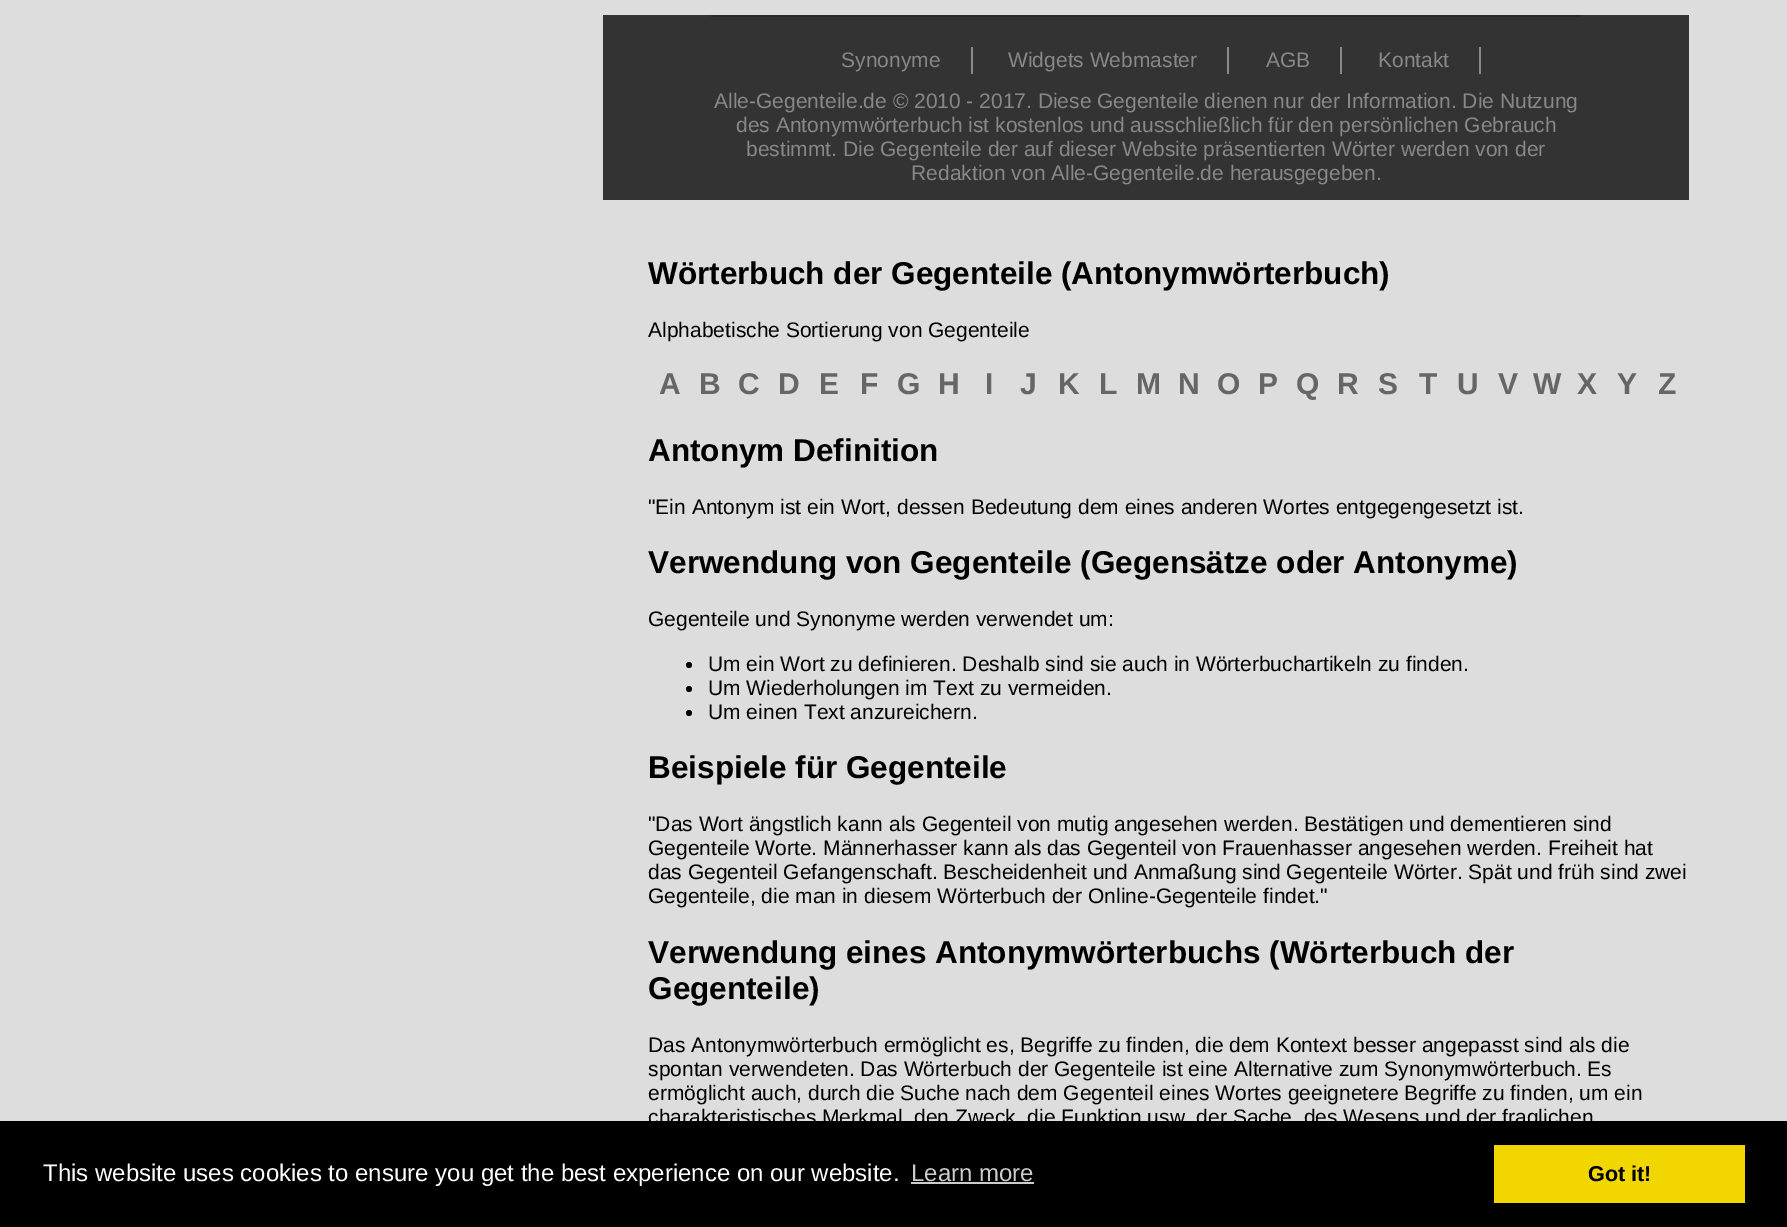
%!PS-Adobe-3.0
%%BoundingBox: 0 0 1787 1227
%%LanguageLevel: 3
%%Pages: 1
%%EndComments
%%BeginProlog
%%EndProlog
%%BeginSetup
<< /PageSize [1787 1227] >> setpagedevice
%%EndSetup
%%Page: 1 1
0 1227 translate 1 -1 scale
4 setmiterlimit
0.867 setgray
0 0 1787 1227 rectfill
0.2 setgray
603 15 1086 185 rectfill
0.165 setgray
711 15 870 2 rectfill
0.533 setgray
971 47 2 27 rectfill
1227 47 2 27 rectfill
1340 47 2 27 rectfill
1479 47 2 27 rectfill
0 setgray
newpath 689 665 3 0 360 arc closepath fill
newpath 689 689 3 0 360 arc closepath fill
newpath 689 713 3 0 360 arc closepath fill
0 1121 1787 106 rectfill
0.8 setgray
911 1182 123 2 rectfill
0.945 0.839 0 setrgbcolor
1494 1145 251 58 rectfill
/LiberationSans-Regular [21 0 0 -21 0 0] selectfont
0.533 setgray
841 67 moveto (Synonyme) show
1008 67 moveto (Widgets Webmaster) show
1266 67 moveto (AGB) show
1378 67 moveto (Kontakt) show
714 108 moveto (Alle-Gegenteile.de © 2010 - 2017. Diese Gegenteile dienen nur der Information. Die Nutzung) show
736 132 moveto (des Antonymwörterbuch ist kostenlos und ausschließlich für den persönlichen Gebrauch) show
746 156 moveto (bestimmt. Die Gegenteile der auf dieser Website präsentierten Wörter werden von der) show
911 180 moveto (Redaktion von Alle-Gegenteile.de herausgegeben.) show
/LiberationSans-Bold [31.5 0 0 -31.5 0 0] selectfont
0 setgray
648 284 moveto (Wörterbuch der Gegenteile \(Antonymwörterbuch\)) show
/LiberationSans-Regular [21 0 0 -21 0 0] selectfont
648 337 moveto (Alphabetische Sortierung von Gegenteile) show
/LiberationSans-Bold [30 0 0 -30 0 0] selectfont
0.4 setgray
659 394 moveto (A) show
699 394 moveto (B) show
738 394 moveto (C) show
778 394 moveto (D) show
819 394 moveto (E) show
860 394 moveto (F) show
897 394 moveto (G) show
938 394 moveto (H) show
985 394 moveto (I) show
1020 394 moveto (J) show
1058 394 moveto (K) show
1099 394 moveto (L) show
1136 394 moveto (M) show
1178 394 moveto (N) show
1217 394 moveto (O) show
1258 394 moveto (P) show
1296 394 moveto (Q) show
1337 394 moveto (R) show
1378 394 moveto (S) show
1419 394 moveto (T) show
1457 394 moveto (U) show
1498 394 moveto (V) show
1533 394 moveto (W) show
1577 394 moveto (X) show
1617 394 moveto (Y) show
1658 394 moveto (Z) show
/LiberationSans-Bold [31.5 0 0 -31.5 0 0] selectfont
0 setgray
648 461 moveto (Antonym Definition) show
/LiberationSans-Regular [21 0 0 -21 0 0] selectfont
648 514 moveto ("Ein Antonym ist ein Wort, dessen Bedeutung dem eines anderen Wortes entgegengesetzt ist.) show
/LiberationSans-Bold [31.5 0 0 -31.5 0 0] selectfont
648 573 moveto (Verwendung von Gegenteile \(Gegensätze oder Antonyme\)) show
/LiberationSans-Regular [21 0 0 -21 0 0] selectfont
648 626 moveto (Gegenteile und Synonyme werden verwendet um:) show
708 671 moveto (Um ein Wort zu definieren. Deshalb sind sie auch in Wörterbuchartikeln zu finden.) show
708 695 moveto (Um Wiederholungen im Text zu vermeiden.) show
708 719 moveto (Um einen Text anzureichern.) show
/LiberationSans-Bold [31.5 0 0 -31.5 0 0] selectfont
648 778 moveto (Beispiele für Gegenteile) show
/LiberationSans-Regular [21 0 0 -21 0 0] selectfont
648 831 moveto ("Das Wort ängstlich kann als Gegenteil von mutig angesehen werden. Bestätigen und dementieren sind) show
648 855 moveto (Gegenteile Worte. Männerhasser kann als das Gegenteil von Frauenhasser angesehen werden. Freiheit hat) show
648 879 moveto (das Gegenteil Gefangenschaft. Bescheidenheit und Anmaßung sind Gegenteile Wörter. Spät und früh sind zwei) show
648 903 moveto (Gegenteile, die man in diesem Wörterbuch der Online-Gegenteile findet.") show
/LiberationSans-Bold [31.5 0 0 -31.5 0 0] selectfont
648 963 moveto (Verwendung eines Antonymwörterbuchs \(Wörterbuch der) show
648 999 moveto (Gegenteile\)) show
/LiberationSans-Regular [21 0 0 -21 0 0] selectfont
648 1052 moveto (Das Antonymwörterbuch ermöglicht es, Begriffe zu finden, die dem Kontext besser angepasst sind als die) show
648 1076 moveto (spontan verwendeten. Das Wörterbuch der Gegenteile ist eine Alternative zum Synonymwörterbuch. Es) show
648 1100 moveto (ermöglicht auch, durch die Suche nach dem Gegenteil eines Wortes geeignetere Begriffe zu finden, um ein) show
648 1124 moveto (charakteristisches Merkmal, den Zweck, die Funktion usw. der Sache, des Wesens und der fraglichen) show
/LiberationSans-Regular [24 0 0 -24 0 0] selectfont
1 setgray
43 1181 moveto (This website uses cookies to ensure you get the best experience on our website.) show
0.8 setgray
911 1181 moveto (Learn more) show
/LiberationSans-Bold [21.5 0 0 -21.5 0 0] selectfont
0 setgray
1588 1181 moveto (Got it!) show
showpage
%%EOF
